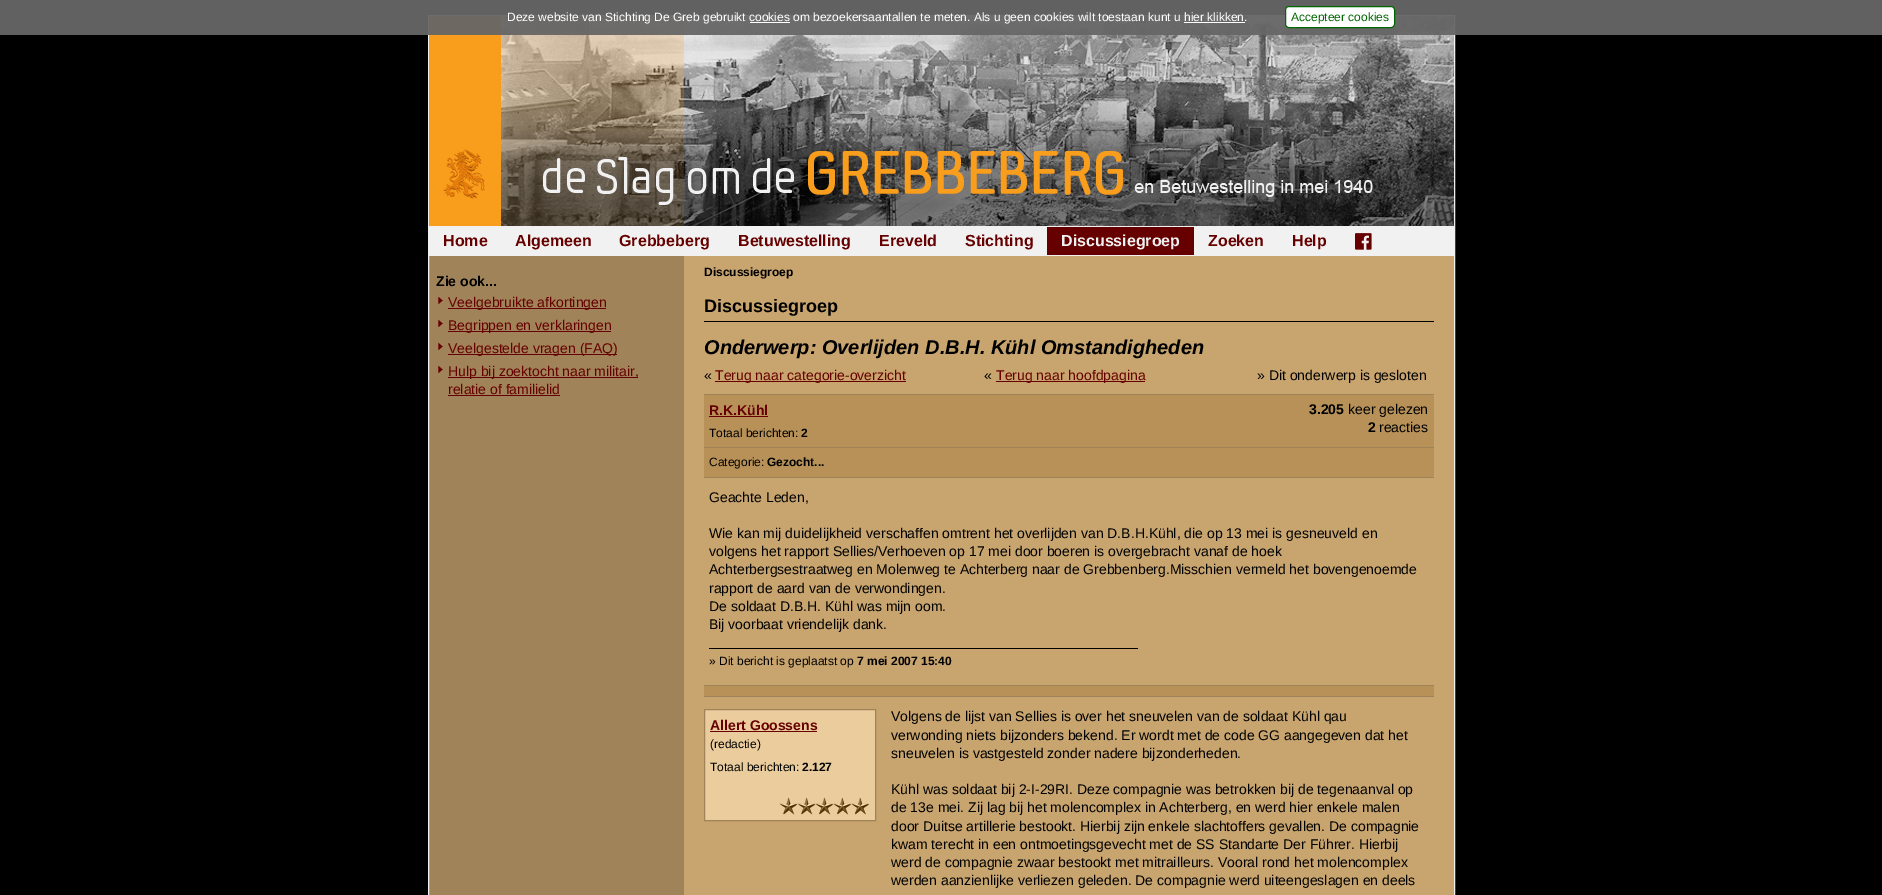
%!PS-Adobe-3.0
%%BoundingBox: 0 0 1882 895
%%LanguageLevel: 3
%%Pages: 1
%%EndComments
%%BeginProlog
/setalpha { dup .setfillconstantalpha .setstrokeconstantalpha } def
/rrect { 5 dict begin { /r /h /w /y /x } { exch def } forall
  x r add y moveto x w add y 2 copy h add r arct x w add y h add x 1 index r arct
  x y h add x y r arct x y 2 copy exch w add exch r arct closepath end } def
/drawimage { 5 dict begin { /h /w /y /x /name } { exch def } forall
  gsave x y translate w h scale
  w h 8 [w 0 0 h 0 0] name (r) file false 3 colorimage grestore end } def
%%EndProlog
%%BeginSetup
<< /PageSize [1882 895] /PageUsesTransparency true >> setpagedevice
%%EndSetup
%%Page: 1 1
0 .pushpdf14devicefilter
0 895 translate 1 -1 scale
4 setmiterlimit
0 setgray
0 0 1882 895 rectfill
0.627 0.514 0.345 setrgbcolor
429 256 255 639 rectfill
0.945 setgray
428.5 15.5 1026 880 rectstroke
(images/1.raw) 501 16 953 210 drawimage
(images/2.raw) 429 16 1025 210 drawimage
0.95 setalpha
0.4 setgray
0 0 1882 35 rectfill
1 setalpha
1 setgray
1285.5 6.5 109 21 3.5 rrect gsave fill grestore
0 0.4 0 setrgbcolor
stroke
1 setgray
750 22 40 1 rectfill
1184 22 61 1 rectfill
0.945 setgray
429 226 1025 30 rectfill
0.4 0 0 setrgbcolor
1047 227 147 28 rectfill
(images/3.raw) 1355 233 17 17 drawimage
(images/4.raw) 438 297 5 7 drawimage
448 308 158 1 rectfill
(images/4.raw) 438 320 5 7 drawimage
448 331 163 1 rectfill
(images/4.raw) 438 343 5 7 drawimage
448 354 169 1 rectfill
(images/4.raw) 438 366 5 7 drawimage
448 377 190 1 rectfill
448 395 112 1 rectfill
0.784 0.643 0.431 setrgbcolor
684 256 770 639 rectfill
0 setgray
704 321 730 1 rectfill
0.4 0 0 setrgbcolor
715 381 191 1 rectfill
996 381 149 1 rectfill
0.718 0.569 0.341 setrgbcolor
704 395 730 52 rectfill
0.627 0.514 0.345 setrgbcolor
704 394 730 1 rectfill
0.4 0 0 setrgbcolor
709 416 59 1 rectfill
0.718 0.569 0.341 setrgbcolor
704 448 730 29 rectfill
0.627 0.514 0.345 setrgbcolor
704 447 730 1 rectfill
704 477 730 1 rectfill
704 685 730 1 rectfill
0 setgray
709 648 429 1 rectfill
0.718 0.569 0.341 setrgbcolor
704 686 730 10 rectfill
0.627 0.514 0.345 setrgbcolor
704 696 730 1 rectfill
0.922 0.8 0.616 setrgbcolor
705 710 170 110 rectfill
(images/5.raw) 779 797 91 18 drawimage
0.627 0.514 0.345 setrgbcolor
704.5 709.5 171 111 rectstroke
0.4 0 0 setrgbcolor
710 731 107 1 rectfill
/LiberationSans-Regular [12 0 0 -12 0 0] selectfont
1 setgray
507 21 moveto (Deze website van Stichting De Greb gebruikt cookies om bezoekersaantallen te meten. Als u geen cookies wilt toestaan kunt u hier klikken.) show
0 0.4 0 setrgbcolor
1291 21 moveto (Accepteer cookies) show
/LiberationSans-Bold [16 0 0 -16 0 0] selectfont
0.4 0 0 setrgbcolor
443 246 moveto (Home) show
515 246 moveto (Algemeen) show
619 246 moveto (Grebbeberg) show
738 246 moveto (Betuwestelling) show
879 246 moveto (Ereveld) show
965 246 moveto (Stichting) show
0.945 setgray
1061 246 moveto (Discussiegroep) show
0.4 0 0 setrgbcolor
1208 246 moveto (Zoeken) show
1292 246 moveto (Help) show
/LiberationSans-Bold [14 0 0 -14 0 0] selectfont
0 setgray
436 286 moveto (Zie ook...) show
/LiberationSans-Regular [14 0 0 -14 0 0] selectfont
0.4 0 0 setrgbcolor
448 307 moveto (Veelgebruikte afkortingen) show
448 330 moveto (Begrippen en verklaringen) show
448 353 moveto (Veelgestelde vragen \(FAQ\)) show
448 376 moveto (Hulp bij zoektocht naar militair,) show
448 394 moveto (relatie of familielid) show
/LiberationSans-Bold [12 0 0 -12 0 0] selectfont
0 setgray
704 276 moveto (Discussiegroep) show
/LiberationSans-Bold [18 0 0 -18 0 0] selectfont
704 312 moveto (Discussiegroep) show
/LiberationSans-BoldItalic [20 0 0 -20 0 0] selectfont
704 354 moveto (Onderwerp: Overlijden D.B.H. Kühl Omstandigheden) show
/LiberationSans-Regular [14 0 0 -14 0 0] selectfont
704 380 moveto («) show
0.4 0 0 setrgbcolor
715 380 moveto (Terug naar categorie-overzicht) show
0 setgray
984 380 moveto («) show
0.4 0 0 setrgbcolor
996 380 moveto (Terug naar hoofdpagina) show
0 setgray
1257 380 moveto (» Dit onderwerp is gesloten) show
/LiberationSans-Bold [14 0 0 -14 0 0] selectfont
0.4 0 0 setrgbcolor
709 415 moveto (R.K.Kühl) show
/LiberationSans-Regular [12 0 0 -12 0 0] selectfont
0 setgray
709 437 moveto (Totaal berichten:) show
/LiberationSans-Bold [12 0 0 -12 0 0] selectfont
801 437 moveto (2) show
/LiberationSans-Bold [14 0 0 -14 0 0] selectfont
1309 414 moveto (3.205) show
/LiberationSans-Regular [14 0 0 -14 0 0] selectfont
1348 414 moveto (keer gelezen) show
/LiberationSans-Bold [14 0 0 -14 0 0] selectfont
1368 432 moveto (2) show
/LiberationSans-Regular [14 0 0 -14 0 0] selectfont
1379 432 moveto (reacties) show
/LiberationSans-Regular [12 0 0 -12 0 0] selectfont
709 466 moveto (Categorie:) show
/LiberationSans-Bold [12 0 0 -12 0 0] selectfont
767 466 moveto (Gezocht...) show
/LiberationSans-Regular [14 0 0 -14 0 0] selectfont
709 502 moveto (Geachte Leden,) show
709 538 moveto (Wie kan mij duidelijkheid verschaffen omtrent het overlijden van D.B.H.Kühl, die op 13 mei is gesneuveld en) show
709 556 moveto (volgens het rapport Sellies/Verhoeven op 17 mei door boeren is overgebracht vanaf de hoek) show
709 574 moveto (Achterbergsestraatweg en Molenweg te Achterberg naar de Grebbenberg.Misschien vermeld het bovengenoemde) show
709 593 moveto (rapport de aard van de verwondingen.) show
709 611 moveto (De soldaat D.B.H. Kühl was mijn oom.) show
709 629 moveto (Bij voorbaat vriendelijk dank.) show
/LiberationSans-Regular [12 0 0 -12 0 0] selectfont
709 665 moveto (» Dit bericht is geplaatst op) show
/LiberationSans-Bold [12 0 0 -12 0 0] selectfont
857 665 moveto (7 mei 2007 15:40) show
/LiberationSans-Bold [14 0 0 -14 0 0] selectfont
0.4 0 0 setrgbcolor
710 730 moveto (Allert Goossens) show
/LiberationSans-Regular [12 0 0 -12 0 0] selectfont
0 setgray
710 748 moveto (\(redactie\)) show
710 771 moveto (Totaal berichten:) show
/LiberationSans-Bold [12 0 0 -12 0 0] selectfont
802 771 moveto (2.127) show
/LiberationSans-Regular [14 0 0 -14 0 0] selectfont
891 721 moveto (Volgens de lijst van Sellies is over het sneuvelen van de soldaat Kühl qau) show
891 740 moveto (verwonding niets bijzonders bekend. Er wordt met de code GG aangegeven dat het) show
891 758 moveto (sneuvelen is vastgesteld zonder nadere bijzonderheden.) show
891 794 moveto (Kühl was soldaat bij 2-I-29RI. Deze compagnie was betrokken bij de tegenaanval op) show
891 812 moveto (de 13e mei. Zij lag bij het molencomplex in Achterberg, en werd hier enkele malen) show
891 831 moveto (door Duitse artillerie bestookt. Hierbij zijn enkele slachtoffers gevallen. De compagnie) show
891 849 moveto (kwam terecht in een ontmoetingsgevecht met de SS Standarte Der Führer. Hierbij) show
891 867 moveto (werd de compagnie zwaar bestookt met mitrailleurs. Vooral rond het molencomplex) show
891 885 moveto (werden aanzienlijke verliezen geleden. De compagnie werd uiteengeslagen en deels) show
.poppdf14devicefilter showpage
%%EOF
